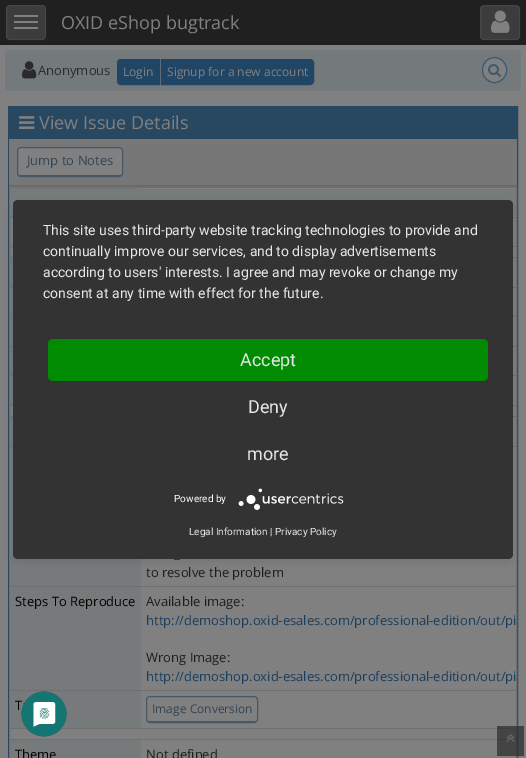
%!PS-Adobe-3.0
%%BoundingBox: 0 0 526 758
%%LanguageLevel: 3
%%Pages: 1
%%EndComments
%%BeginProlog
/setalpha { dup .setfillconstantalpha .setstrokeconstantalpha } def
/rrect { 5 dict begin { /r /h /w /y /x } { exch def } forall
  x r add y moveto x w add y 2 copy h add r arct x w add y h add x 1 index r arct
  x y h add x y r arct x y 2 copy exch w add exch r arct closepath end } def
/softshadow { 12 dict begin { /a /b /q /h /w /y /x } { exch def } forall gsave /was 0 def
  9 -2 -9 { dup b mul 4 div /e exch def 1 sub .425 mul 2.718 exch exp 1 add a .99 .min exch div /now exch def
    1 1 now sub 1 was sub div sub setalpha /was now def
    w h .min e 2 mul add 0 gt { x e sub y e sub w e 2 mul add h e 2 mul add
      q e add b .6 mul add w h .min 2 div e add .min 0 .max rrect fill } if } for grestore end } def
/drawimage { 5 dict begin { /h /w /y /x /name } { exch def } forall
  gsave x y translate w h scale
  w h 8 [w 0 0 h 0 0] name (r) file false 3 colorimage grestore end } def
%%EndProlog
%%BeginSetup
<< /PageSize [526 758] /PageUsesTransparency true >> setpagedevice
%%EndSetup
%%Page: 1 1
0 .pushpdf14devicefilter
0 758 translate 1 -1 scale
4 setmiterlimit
0.502 setgray
0 0 526 758 rectfill
0.125 setgray
0 0 526 45 rectfill
0.235 setgray
6 5 40 35 4 rrect fill
0.15 setalpha
0.502 setgray
6.5 5.5 39 34 3.5 rrect stroke
1 setalpha
14 15 24 2 rectfill
14 21 24 2 rectfill
14 27 24 2 rectfill
0.235 setgray
480 5 40 35 4 rrect fill
0.15 setalpha
0.502 setgray
480.5 5.5 39 34 3.5 rrect stroke
1 setalpha
(images/1.raw) 491 10 19 23 drawimage
0.455 0.475 0.486 setrgbcolor
5 50 516 41 4 rrect fill
(images/2.raw) 22 61 15 18 drawimage
0.129 0.275 0.396 setrgbcolor
newpath 121 59.5 moveto 159.5 59.5 lineto 159.5 84.5 lineto 121 84.5 lineto 119 84.5 117.5 83 117.5 81 curveto 117.5 63 lineto 117.5 61 119 59.5 121 59.5 curveto closepath gsave fill grestore
stroke
newpath 161.5 59.5 moveto 310 59.5 lineto 312 59.5 313.5 61 313.5 63 curveto 313.5 81 lineto 313.5 83 312 84.5 310 84.5 curveto 161.5 84.5 lineto closepath gsave fill grestore
stroke
0.502 setgray
482.5 57.5 24 25 12 rrect gsave fill grestore
0.22 0.353 0.439 setrgbcolor
stroke
(images/3.raw) 488 64 13 13 drawimage
0.157 0.282 0.38 setrgbcolor
8.5 106.5 509 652 rectstroke
9 107 508 32 rectfill
(images/4.raw) 19 116 16 13 drawimage
0.467 setgray
9 139 508 46 rectfill
0.4 setgray
9 185 508 1 rectfill
0.502 setgray
newpath 21 148 moveto 119 148 lineto 121 148 122 149 122 151 curveto 122 173 lineto 122 174 121 175 119 175 curveto 21 175 lineto 19 175 18 174 18 173 curveto 18 151 lineto 18 149 19 148 21 148 curveto closepath fill
0.271 0.345 0.404 setrgbcolor
17.5 147.5 105 29 3.5 rrect stroke
19 175 102 1 rectfill
0.435 setgray
9.5 186.5 507 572 rectstroke
0.467 0.478 0.478 setrgbcolor
141 189 375 27 rectfill
0.435 setgray
10 187 506 1 rectfill
0.467 0.478 0.478 setrgbcolor
10 188 131 29 rectfill
0.435 setgray
10 217 3 1 rectfill
513 217 3 1 rectfill
10 246 506 1 rectfill
0.467 0.478 0.478 setrgbcolor
10 258 3 29 rectfill
0.435 setgray
10 257 3 1 rectfill
513 257 3 1 rectfill
0.467 0.478 0.478 setrgbcolor
10 288 3 28 rectfill
0.435 setgray
10 287 3 1 rectfill
513 287 3 1 rectfill
0.467 0.478 0.478 setrgbcolor
10 317 3 29 rectfill
0.435 setgray
10 316 3 1 rectfill
513 316 3 1 rectfill
0.467 0.478 0.478 setrgbcolor
10 347 3 28 rectfill
0.435 setgray
10 346 3 1 rectfill
513 346 3 1 rectfill
0.467 0.478 0.478 setrgbcolor
10 376 3 29 rectfill
0.435 setgray
10 375 3 1 rectfill
513 375 3 1 rectfill
10 405 506 1 rectfill
0.467 0.478 0.478 setrgbcolor
10 417 3 29 rectfill
0.435 setgray
10 416 3 1 rectfill
513 416 3 1 rectfill
0.467 0.478 0.478 setrgbcolor
10 447 131 139 rectfill
0.435 setgray
10 446 3 1 rectfill
513 446 3 1 rectfill
0.467 0.478 0.478 setrgbcolor
10 587 131 103 rectfill
0.435 setgray
10 586 506 1 rectfill
0.467 0.478 0.478 setrgbcolor
10 691 131 37 rectfill
0.435 setgray
10 690 506 1 rectfill
0.271 0.345 0.404 setrgbcolor
146.5 696.5 111 26 3.5 rrect stroke
148 721 108 1 rectfill
0.435 setgray
10 728 506 1 rectfill
0.467 0.478 0.478 setrgbcolor
10 740 131 18 rectfill
0.435 setgray
10 739 506 1 rectfill
0.7 setalpha
0.169 setgray
497 726 27 30 rectfill
1 setalpha
(images/5.raw) 506 734 9 8 drawimage
0 setgray
13 203 500 359 5 5 0.1 softshadow
gsave
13 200 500 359 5 rrect clip newpath
13 206 500 359 0 18 0.3 softshadow
grestore
0.2 setgray
13 200 500 359 5 rrect fill
0 0.545 0.008 setrgbcolor
48 339 440 42 5 rrect fill
(images/6.raw) 238 488 106 22 drawimage
/OpenSans-Regular [18 0 0 -18 0 0] selectfont
0.502 setgray
61 29 moveto (OXID eShop bugtrack) show
/OpenSans-Regular [13 0 0 -13 0 0] selectfont
0.169 setgray
38 75 moveto (Anonymous) show
/OpenSans-Regular [12 0 0 -12 0 0] selectfont
0.502 setgray
123 76 moveto (Login) show
167 76 moveto (Signup for a new account) show
/OpenSans-Regular [18 0 0 -18 0 0] selectfont
39 129 moveto (View Issue Details) show
/OpenSans-Regular [13 0 0 -13 0 0] selectfont
0.2 0.267 0.325 setrgbcolor
27 165 moveto (Jump to Notes) show
0.114 setgray
174 558 moveto (_) show
146 577 moveto (to resolve the problem) show
0 setgray
15 606 moveto (Steps To Reproduce) show
0.114 setgray
146 606 moveto (Available image:) show
0.102 0.239 0.361 setrgbcolor
146 625 moveto (http://demoshop.oxid-esales.com/professional-edition/out/pi) show
0.114 setgray
146 662 moveto (Wrong Image:) show
0.102 0.239 0.361 setrgbcolor
146 681 moveto (http://demoshop.oxid-esales.com/professional-edition/out/pi) show
0 setgray
15 710 moveto (T) show
/OpenSans-Regular [12 0 0 -12 0 0] selectfont
0.2 0.267 0.325 setrgbcolor
152 713 moveto (Image Conversion) show
/OpenSans-Regular [13 0 0 -13 0 0] selectfont
0 setgray
15 759 moveto (Theme) show
0.114 setgray
146 759 moveto (Not defined) show
/Roboto-Regular [14 0 0 -14 0 0] selectfont
0.902 setgray
43 235 moveto (This site uses third-party website tracking technologies to provide and) show
43 256 moveto (continually improve our services, and to display advertisements) show
43 277 moveto (according to users' interests. I agree and may revoke or change my) show
43 298 moveto (consent at any time with effect for the future.) show
/Roboto-Regular [18 0 0 -18 0 0] selectfont
240 366 moveto (Accept) show
248 413 moveto (Deny) show
247 460 moveto (more) show
/Roboto-Regular [10 0 0 -10 0 0] selectfont
1 setgray
174 502 moveto (Powered by) show
0.902 setgray
189 535 moveto (Legal Information | Privacy Policy) show
(images/7.raw) 21 691 46 46 drawimage
.poppdf14devicefilter showpage
%%EOF
